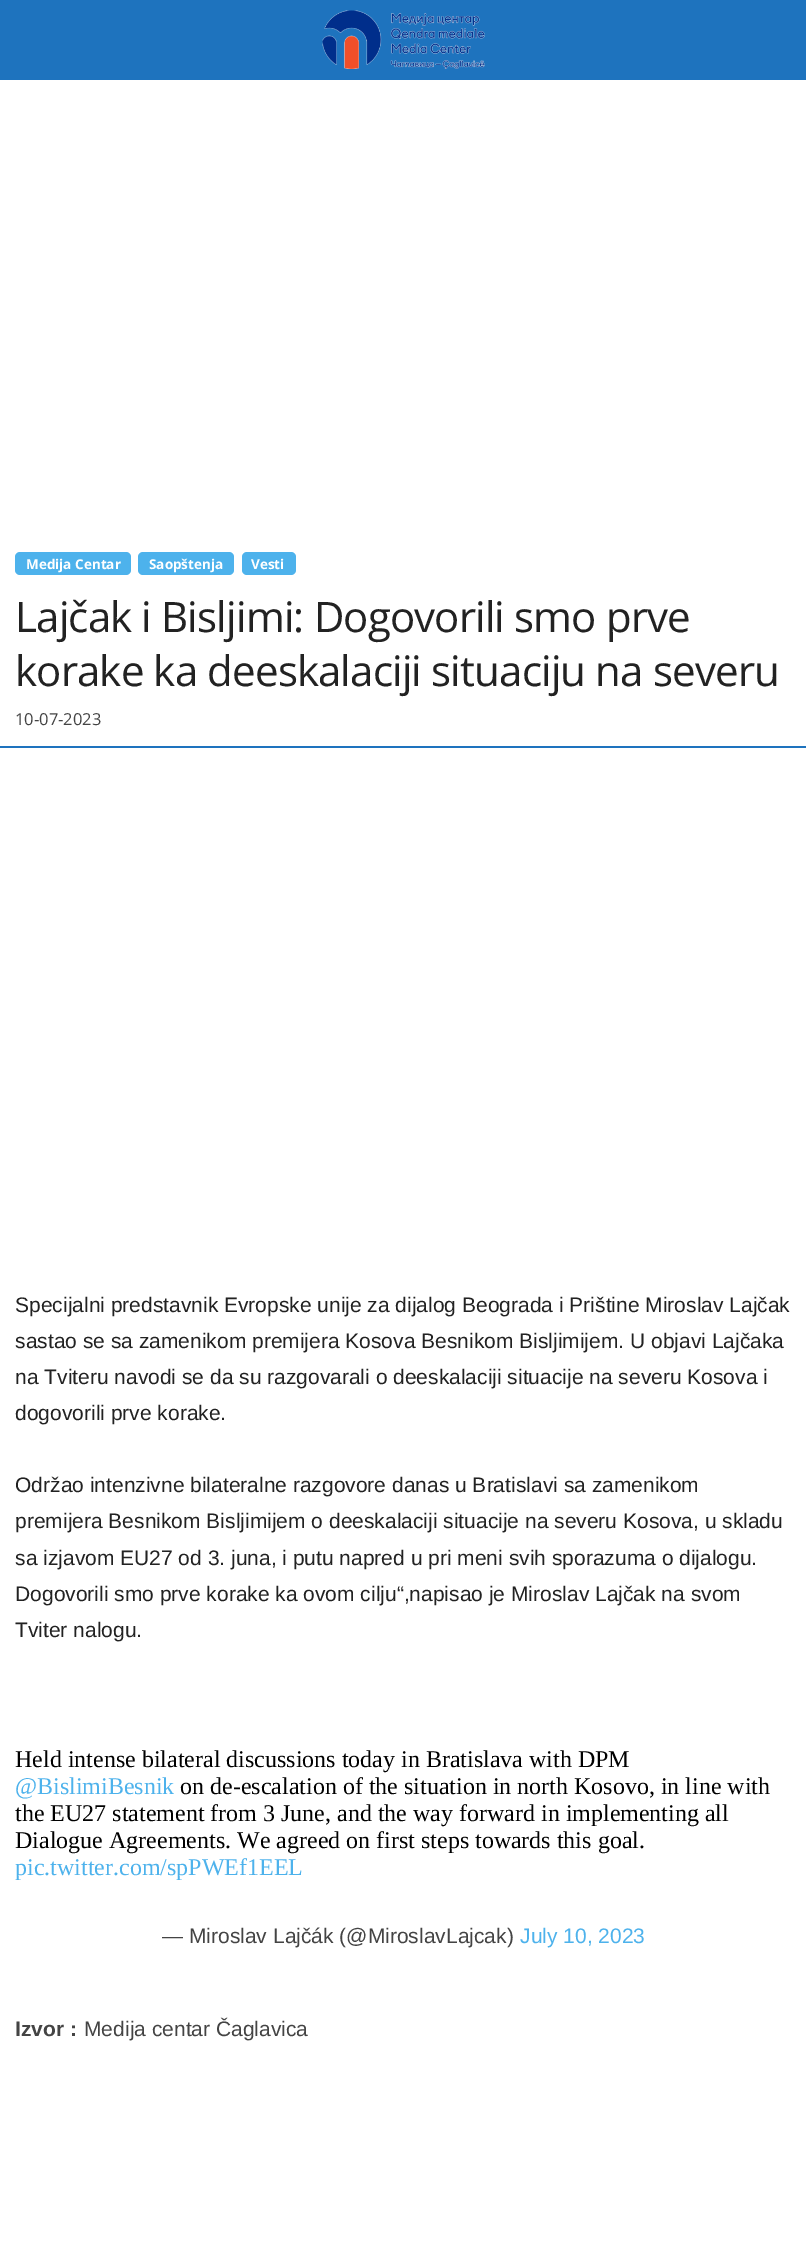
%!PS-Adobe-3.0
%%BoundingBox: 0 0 806 2247
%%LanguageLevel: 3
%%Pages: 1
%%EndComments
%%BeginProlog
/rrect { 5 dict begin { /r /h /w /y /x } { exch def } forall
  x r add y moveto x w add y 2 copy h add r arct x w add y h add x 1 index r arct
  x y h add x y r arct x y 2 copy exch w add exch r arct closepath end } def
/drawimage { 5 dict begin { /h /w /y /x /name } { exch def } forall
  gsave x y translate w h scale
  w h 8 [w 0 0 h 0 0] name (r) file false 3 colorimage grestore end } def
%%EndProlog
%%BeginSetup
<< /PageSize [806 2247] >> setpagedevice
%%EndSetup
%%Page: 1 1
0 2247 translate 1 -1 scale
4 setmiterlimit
1 setgray
0 0 806 2247 rectfill
0.118 0.451 0.745 setrgbcolor
0 0 806 80 rectfill
(images/1.raw) 322 10 163 59 drawimage
0.302 0.698 0.925 setrgbcolor
15 552 116 23 5 rrect fill
138 552 96 23 5 rrect fill
242 552 54 23 5 rrect fill
0.118 0.451 0.745 setrgbcolor
0 746 806 2 rectfill
/OpenSans-Bold [13.5 0 0 -13.5 0 0] selectfont
1 setgray
26 569 moveto (Medija Centar) show
149 569 moveto (Saopštenja) show
251 569 moveto (Vesti) show
/OpenSans-Regular [42 0 0 -42 0 0] selectfont
0.133 setgray
15 632 moveto -0.85 0 (Lajčak i Bisljimi: Dogovorili smo prve) ashow
15 686 moveto -0.85 0 (korake ka deeskalaciji situaciju na severu) ashow
/OpenSans-Regular [16.5 0 0 -16.5 0 0] selectfont
0.267 setgray
15 725 moveto (10-07-2023) show
/LiberationSans-Regular [21 0 0 -21 0 0] selectfont
0.133 setgray
15 1312 moveto (Specijalni predstavnik Evropske unije za dijalog Beograda i Prištine Miroslav Lajčak) show
15 1348 moveto (sastao se sa zamenikom premijera Kosova Besnikom Bisljimijem. U objavi Lajčaka) show
15 1384 moveto (na Tviteru navodi se da su razgovarali o deeskalaciji situacije na severu Kosova i) show
15 1420 moveto (dogovorili prve korake.) show
15 1492 moveto (Održao intenzivne bilateralne razgovore danas u Bratislavi sa zamenikom) show
15 1528 moveto (premijera Besnikom Bisljimijem o deeskalaciji situacije na severu Kosova, u skladu) show
15 1565 moveto (sa izjavom EU27 od 3. juna, i putu napred u pri meni svih sporazuma o dijalogu.) show
15 1601 moveto (Dogovorili smo prve korake ka ovom cilju“,napisao je Miroslav Lajčak na svom) show
15 1637 moveto (Tviter nalogu.) show
/LiberationSerif-Regular [24 0 0 -24 0 0] selectfont
0 setgray
15 1767 moveto (Held intense bilateral discussions today in Bratislava with DPM) show
0.302 0.698 0.925 setrgbcolor
15 1794 moveto (@BislimiBesnik) show
0 setgray
180 1794 moveto (on de-escalation of the situation in north Kosovo, in line with) show
15 1821 moveto (the EU27 statement from 3 June, and the way forward in implementing all) show
15 1848 moveto (Dialogue Agreements. We agreed on first steps towards this goal.) show
0.302 0.698 0.925 setrgbcolor
15 1875 moveto (pic.twitter.com/spPWEf1EEL) show
/LiberationSans-Regular [21 0 0 -21 0 0] selectfont
0.267 setgray
162 1943 moveto (— Miroslav Lajčák \(@MiroslavLajcak\)) show
0.302 0.698 0.925 setrgbcolor
520 1943 moveto (July 10, 2023) show
/LiberationSans-Bold [21 0 0 -21 0 0] selectfont
0.267 setgray
15 2036 moveto (Izvor :) show
/LiberationSans-Regular [21 0 0 -21 0 0] selectfont
84 2036 moveto (Medija centar Čaglavica) show
showpage
%%EOF
